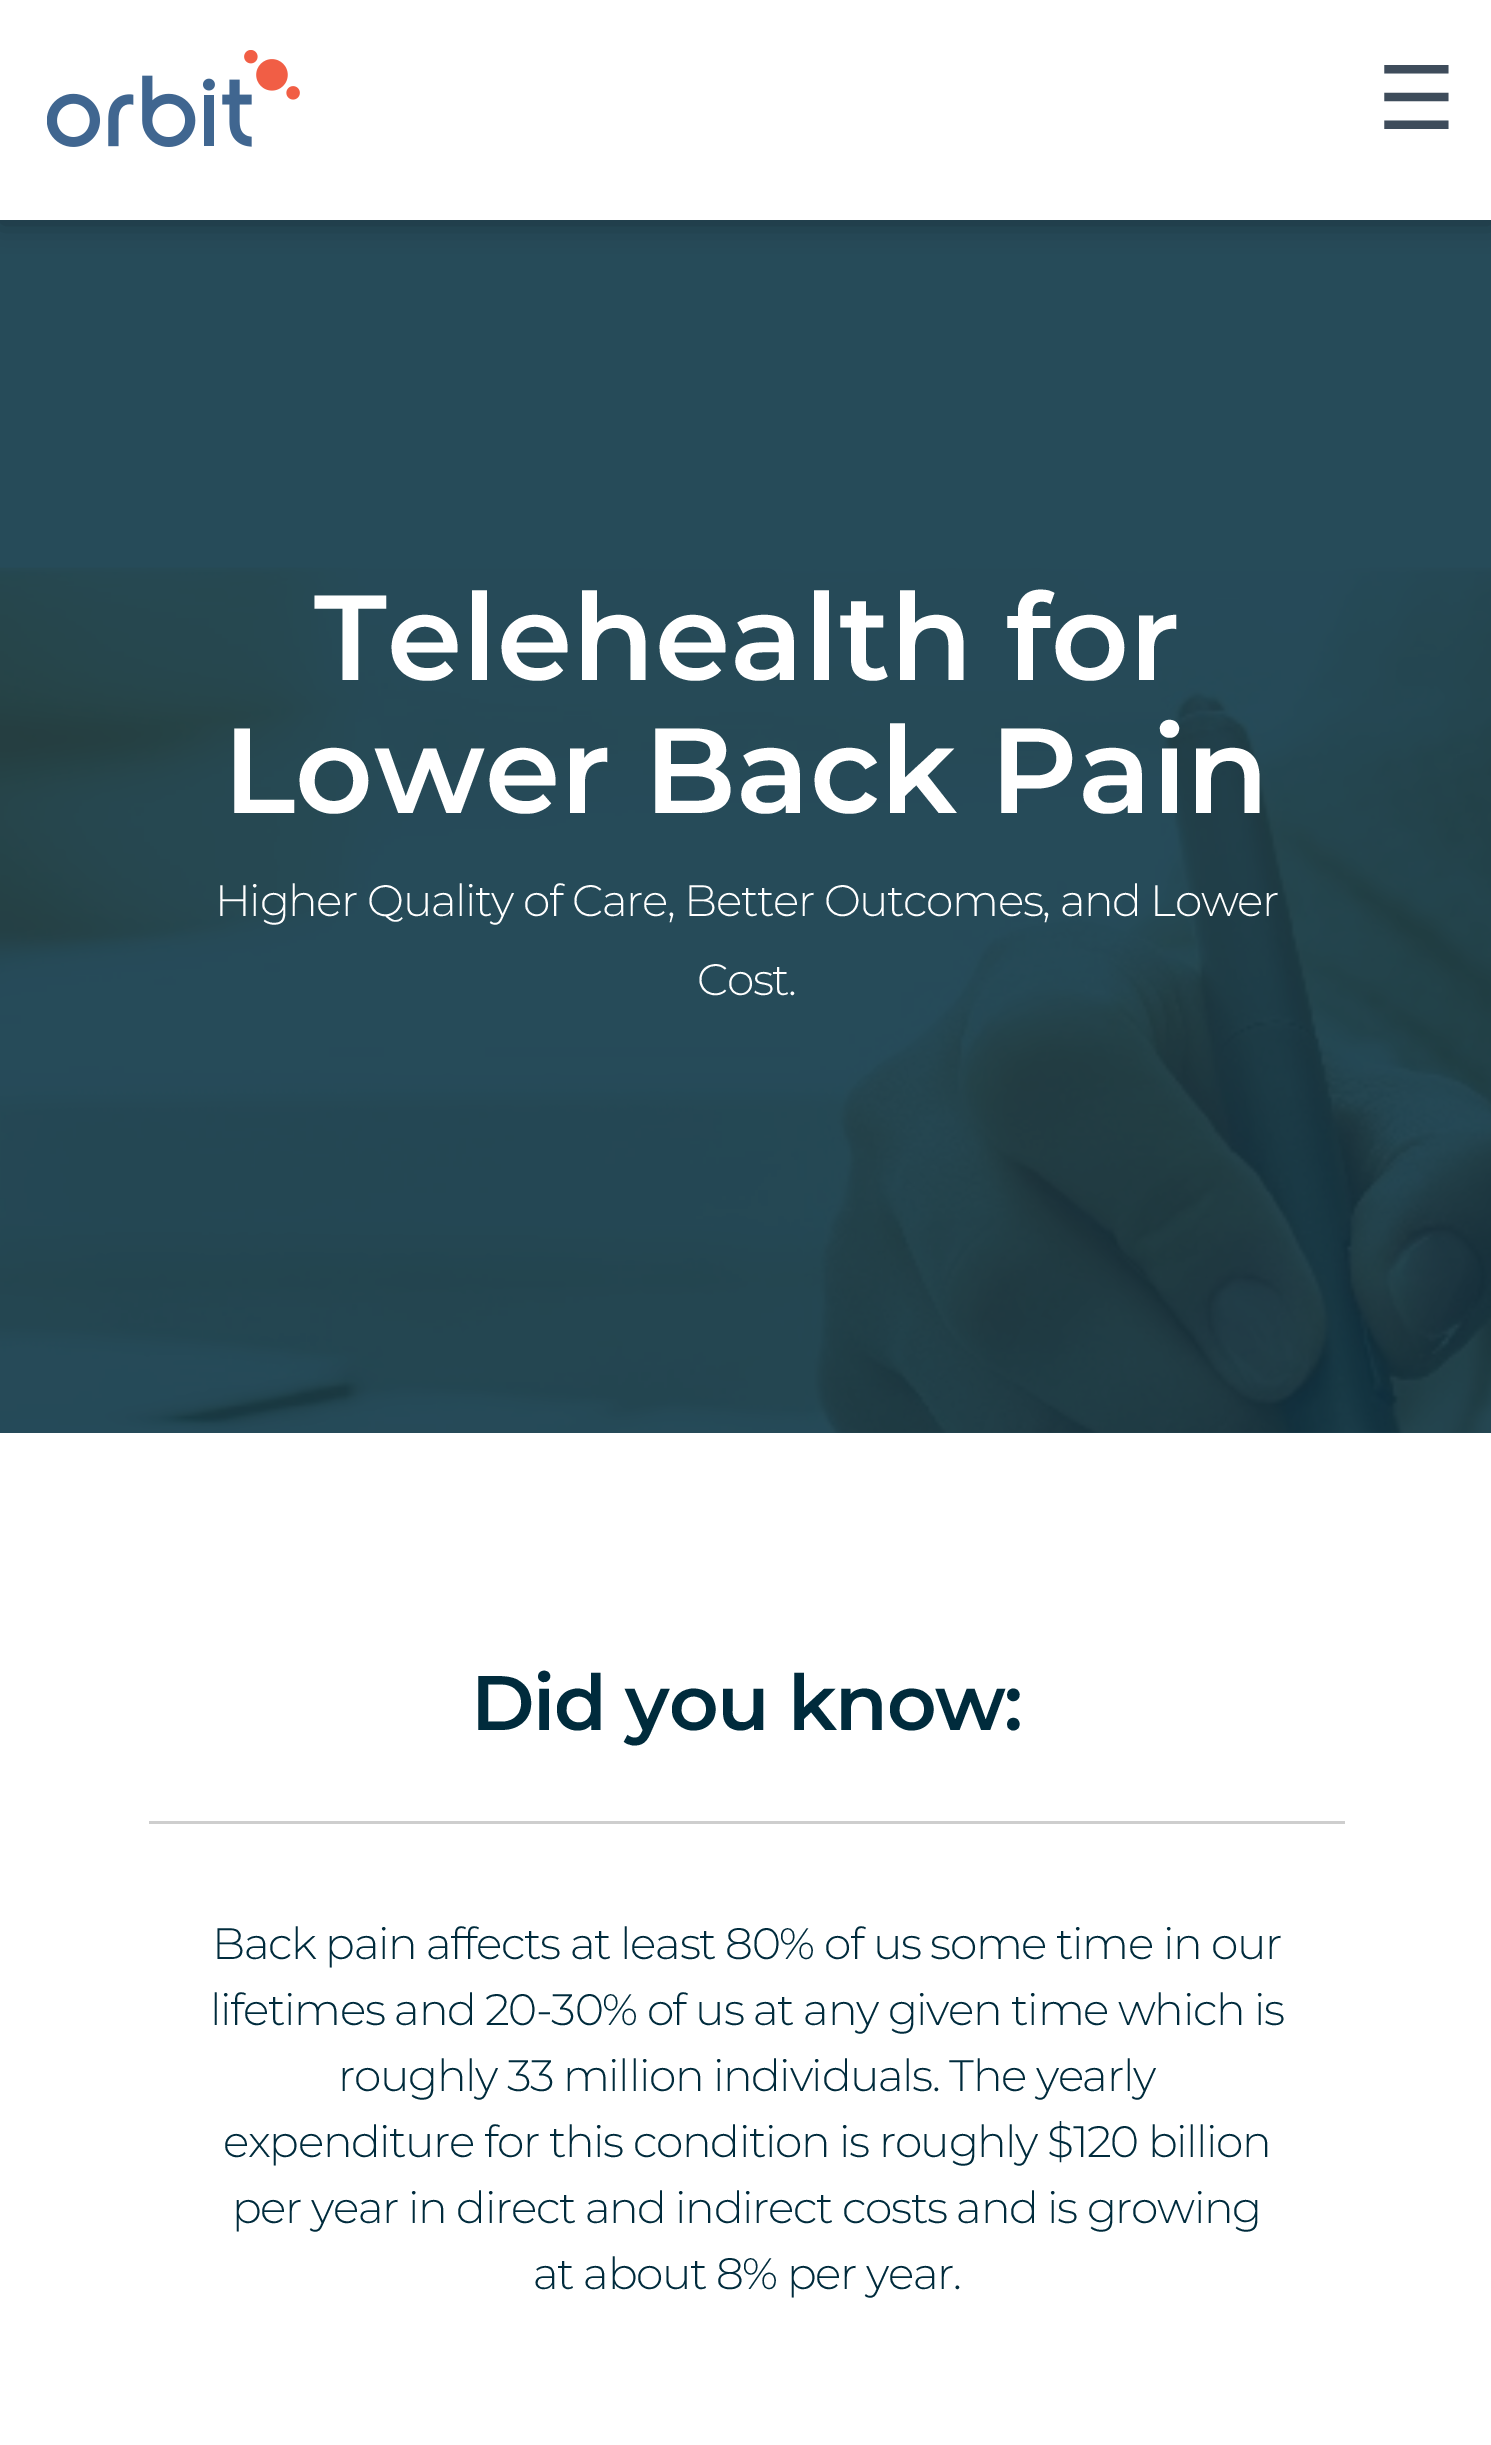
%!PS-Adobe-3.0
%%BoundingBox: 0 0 1491 2445
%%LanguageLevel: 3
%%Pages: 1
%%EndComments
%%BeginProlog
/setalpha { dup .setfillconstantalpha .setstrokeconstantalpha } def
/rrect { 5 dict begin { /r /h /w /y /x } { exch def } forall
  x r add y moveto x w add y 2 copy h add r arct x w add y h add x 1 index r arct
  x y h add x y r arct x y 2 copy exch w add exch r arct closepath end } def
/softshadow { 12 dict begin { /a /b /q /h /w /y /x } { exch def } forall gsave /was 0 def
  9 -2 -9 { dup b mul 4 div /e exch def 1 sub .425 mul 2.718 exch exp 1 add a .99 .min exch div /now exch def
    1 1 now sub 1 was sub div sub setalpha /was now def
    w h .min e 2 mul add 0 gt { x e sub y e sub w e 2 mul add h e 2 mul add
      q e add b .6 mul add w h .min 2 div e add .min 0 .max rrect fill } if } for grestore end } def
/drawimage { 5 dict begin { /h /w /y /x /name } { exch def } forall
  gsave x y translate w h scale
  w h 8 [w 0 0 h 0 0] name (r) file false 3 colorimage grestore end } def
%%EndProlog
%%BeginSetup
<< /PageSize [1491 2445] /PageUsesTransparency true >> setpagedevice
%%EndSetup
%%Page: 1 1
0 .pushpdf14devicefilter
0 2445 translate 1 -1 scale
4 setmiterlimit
0.149 0.294 0.349 setrgbcolor
0 0 1491 2445 rectfill
0 setgray
0 3 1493 220 0 14 0.3 softshadow
1 setgray
0 0 1491 220 rectfill
(images/1.raw) 47 50 253 97 drawimage
(images/2.raw) 0 567 1491 866 drawimage
0 1433 1491 1012 rectfill
0.808 setgray
149 1821 1196 3 rectfill
/DejaVuSans-Regular [88 0 0 -88 0 0] selectfont
0.243 0.298 0.357 setrgbcolor
1377 129 moveto (☰) show
/Montserrat-SemiBold [121 0 0 -121 0 0] selectfont
1 setgray
314 680 moveto (Telehealth for) show
223 813 moveto (Lower Back Pain) show
/Montserrat-Light [44 0 0 -44 0 0] selectfont
215 916 moveto -1.38 0 (Higher Quality of Care, Better Outcomes, and Lower) ashow
697 995 moveto -1.38 0 (Cost.) ashow
/Montserrat-SemiBold [77 0 0 -77 0 0] selectfont
0 0.169 0.235 setrgbcolor
471 1730 moveto -1.38 0 (Did you know:) ashow
/Montserrat-Light [44 0 0 -44 0 0] selectfont
212 1959 moveto -1.38 0 (Back pain affects at least 80% of us some time in our) ashow
210 2025 moveto -1.38 0 (lifetimes and 20‐30% of us at any given time which is) ashow
338 2091 moveto -1.38 0 (roughly 33 million individuals. The yearly) ashow
223 2157 moveto -1.38 0 (expenditure for this condition is roughly $120 billion) ashow
232 2223 moveto -1.38 0 (per year in direct and indirect costs and is growing) ashow
533 2289 moveto -1.38 0 (at about 8% per year.) ashow
.poppdf14devicefilter showpage
%%EOF
